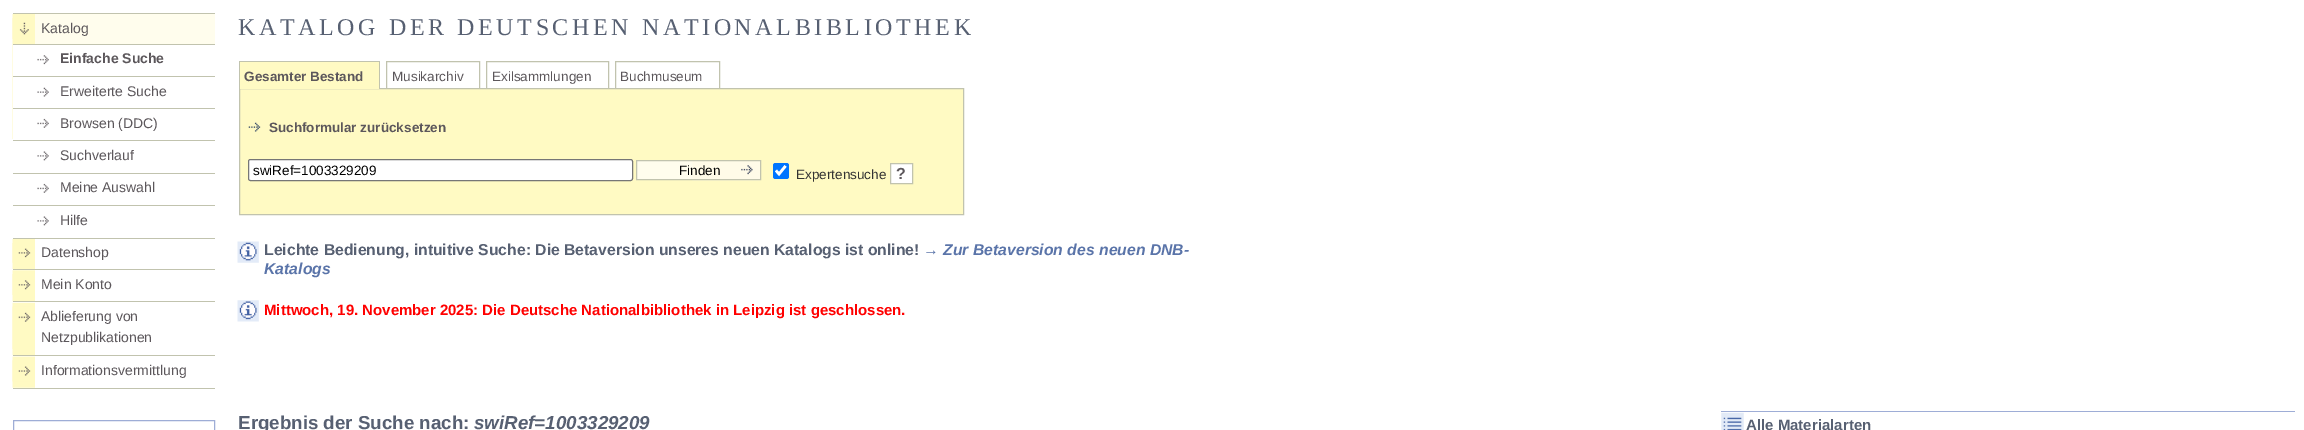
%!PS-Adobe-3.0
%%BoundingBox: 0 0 2304 430
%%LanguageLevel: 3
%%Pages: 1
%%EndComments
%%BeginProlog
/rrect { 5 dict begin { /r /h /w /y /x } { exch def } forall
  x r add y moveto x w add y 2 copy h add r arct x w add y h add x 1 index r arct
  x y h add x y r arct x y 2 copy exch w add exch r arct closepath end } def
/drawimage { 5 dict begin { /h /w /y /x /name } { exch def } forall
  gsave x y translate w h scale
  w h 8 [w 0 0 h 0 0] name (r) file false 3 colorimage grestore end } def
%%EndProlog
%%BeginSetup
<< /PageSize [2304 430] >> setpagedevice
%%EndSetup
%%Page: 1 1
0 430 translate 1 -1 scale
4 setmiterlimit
1 setgray
0 0 2304 430 rectfill
0.757 0.765 0.682 setrgbcolor
13 388 202 1 rectfill
1 0.992 0.929 setrgbcolor
35 14 180 30 rectfill
(images/1.raw) 12 14 23 125 drawimage
0.757 0.765 0.682 setrgbcolor
13 13 202 1 rectfill
(images/2.raw) 12 18 17 21 drawimage
1 setgray
13 45 22 94 rectfill
0.757 0.765 0.682 setrgbcolor
13 44 202 1 rectfill
(images/3.raw) 37 55 12 10 drawimage
13 76 202 1 rectfill
(images/4.raw) 37 87 12 10 drawimage
13 108 202 1 rectfill
(images/5.raw) 37 118 12 10 drawimage
13 140 202 1 rectfill
(images/6.raw) 37 151 12 10 drawimage
13 173 202 1 rectfill
(images/5.raw) 37 183 12 10 drawimage
13 205 202 1 rectfill
(images/6.raw) 37 216 12 10 drawimage
(images/7.raw) 12 239 23 30 drawimage
13 238 202 1 rectfill
(images/8.raw) 12 243 19 20 drawimage
(images/9.raw) 12 270 23 32 drawimage
13 269 202 1 rectfill
(images/10.raw) 12 274 19 21 drawimage
(images/11.raw) 12 302 23 54 drawimage
13 301 202 1 rectfill
(images/12.raw) 12 306 19 43 drawimage
(images/13.raw) 12 356 23 32 drawimage
13 355 202 1 rectfill
(images/14.raw) 12 360 19 22 drawimage
0.62 0.678 0.839 setrgbcolor
13.5 420.5 201 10 rectstroke
0.757 0.765 0.682 setrgbcolor
386.5 61.5 93 38 rectstroke
486.5 61.5 122 38 rectstroke
615.5 61.5 104 38 rectstroke
1 0.98 0.765 setrgbcolor
newpath 239.5 88.5 moveto 963.5 88.5 lineto 963.5 214.5 lineto 239.5 214.5 lineto closepath gsave fill grestore
0.757 0.765 0.682 setrgbcolor
stroke
1 0.98 0.765 setrgbcolor
240 62 139 27 rectfill
0.757 0.765 0.682 setrgbcolor
239 61 141 1 rectfill
379 61 1 28 rectfill
239 61 1 28 rectfill
(images/15.raw) 248 122 13 10 drawimage
1 setgray
248.5 159.5 384 21 2 rrect gsave fill grestore
0.463 setgray
stroke
1 0.992 0.929 setrgbcolor
637 161 56 18 rectfill
(images/16.raw) 692 161 68 20 drawimage
0.757 0.765 0.682 setrgbcolor
636.5 160.5 124 19 rectstroke
0 0.459 1 setrgbcolor
773 163 16 16 2.5 rrect fill
1 setgray
2.6 setlinewidth
newpath 776 170.5 moveto 779 174 lineto 785.5 166 lineto stroke
newpath 890.5 163.5 moveto 912.5 163.5 lineto 912.5 183.5 lineto 890.5 183.5 lineto closepath gsave fill grestore
0.757 0.765 0.682 setrgbcolor
1 setlinewidth
stroke
(images/17.raw) 237 241 22 22 drawimage
(images/18.raw) 237 300 22 22 drawimage
0.62 0.678 0.839 setrgbcolor
1721 411 574 1 rectfill
(images/19.raw) 1721 412 23 18 drawimage
/LiberationSans-Regular [14 0 0 -14 0 0] selectfont
0.361 0.341 0.357 setrgbcolor
41 33 moveto (Katalog) show
/LiberationSans-Bold [14 0 0 -14 0 0] selectfont
60 63 moveto (Einfache Suche) show
/LiberationSans-Regular [14 0 0 -14 0 0] selectfont
60 96 moveto (Erweiterte Suche) show
60 128 moveto (Browsen \(DDC\)) show
60 160 moveto (Suchverlauf) show
60 192 moveto (Meine Auswahl) show
60 225 moveto (Hilfe) show
41 257 moveto (Datenshop) show
41 289 moveto (Mein Konto) show
41 321 moveto (Ablieferung von) show
41 342 moveto (Netzpublikationen) show
41 375 moveto (Informationsvermittlung) show
/LiberationSerif-Regular [24 0 0 -24 0 0] selectfont
0.341 0.376 0.447 setrgbcolor
238 35 moveto 3.6 0 (KATALOG DER DEUTSCHEN NATIONALBIBLIOTHEK) ashow
/LiberationSans-Bold [13.5 0 0 -13.5 0 0] selectfont
0.361 0.341 0.357 setrgbcolor
244 81 moveto (Gesamter Bestand) show
/LiberationSans-Regular [13.5 0 0 -13.5 0 0] selectfont
392 81 moveto (Musikarchiv) show
492 81 moveto (Exilsammlungen) show
620 81 moveto (Buchmuseum) show
/LiberationSans-Bold [13.5 0 0 -13.5 0 0] selectfont
269 132 moveto (Suchformular zurücksetzen) show
/LiberationSans-Regular [13.5 0 0 -13.5 0 0] selectfont
0 setgray
253 175 moveto (swiRef=1003329209) show
679 175 moveto (Finden) show
0.2 setgray
796 179 moveto (Expertensuche) show
/LiberationSans-Bold [16 0 0 -16 0 0] selectfont
0.361 0.341 0.357 setrgbcolor
896 179 moveto (?) show
/LiberationSans-Bold [15.75 0 0 -15.75 0 0] selectfont
0.341 0.376 0.447 setrgbcolor
264 255 moveto (Leichte Bedienung, intuitive Suche: Die Betaversion unseres neuen Katalogs ist online!) show
/LiberationSans-BoldItalic [15.75 0 0 -15.75 0 0] selectfont
0.353 0.455 0.663 setrgbcolor
923 255 moveto (→ Zur Betaversion des neuen DNB-) show
264 274 moveto (Katalogs) show
/LiberationSans-Bold [15 0 0 -15 0 0] selectfont
1 0 0 setrgbcolor
264 315 moveto (Mittwoch, 19. November 2025: Die Deutsche Nationalbibliothek in Leipzig ist geschlossen.) show
/LiberationSans-Bold [18.75 0 0 -18.75 0 0] selectfont
0.341 0.376 0.447 setrgbcolor
238 429 moveto (Ergebnis der Suche nach:) show
/LiberationSans-BoldItalic [18.75 0 0 -18.75 0 0] selectfont
474 429 moveto (swiRef=1003329209) show
/LiberationSans-Bold [15 0 0 -15 0 0] selectfont
1746 430 moveto (Alle Materialarten) show
showpage
%%EOF
